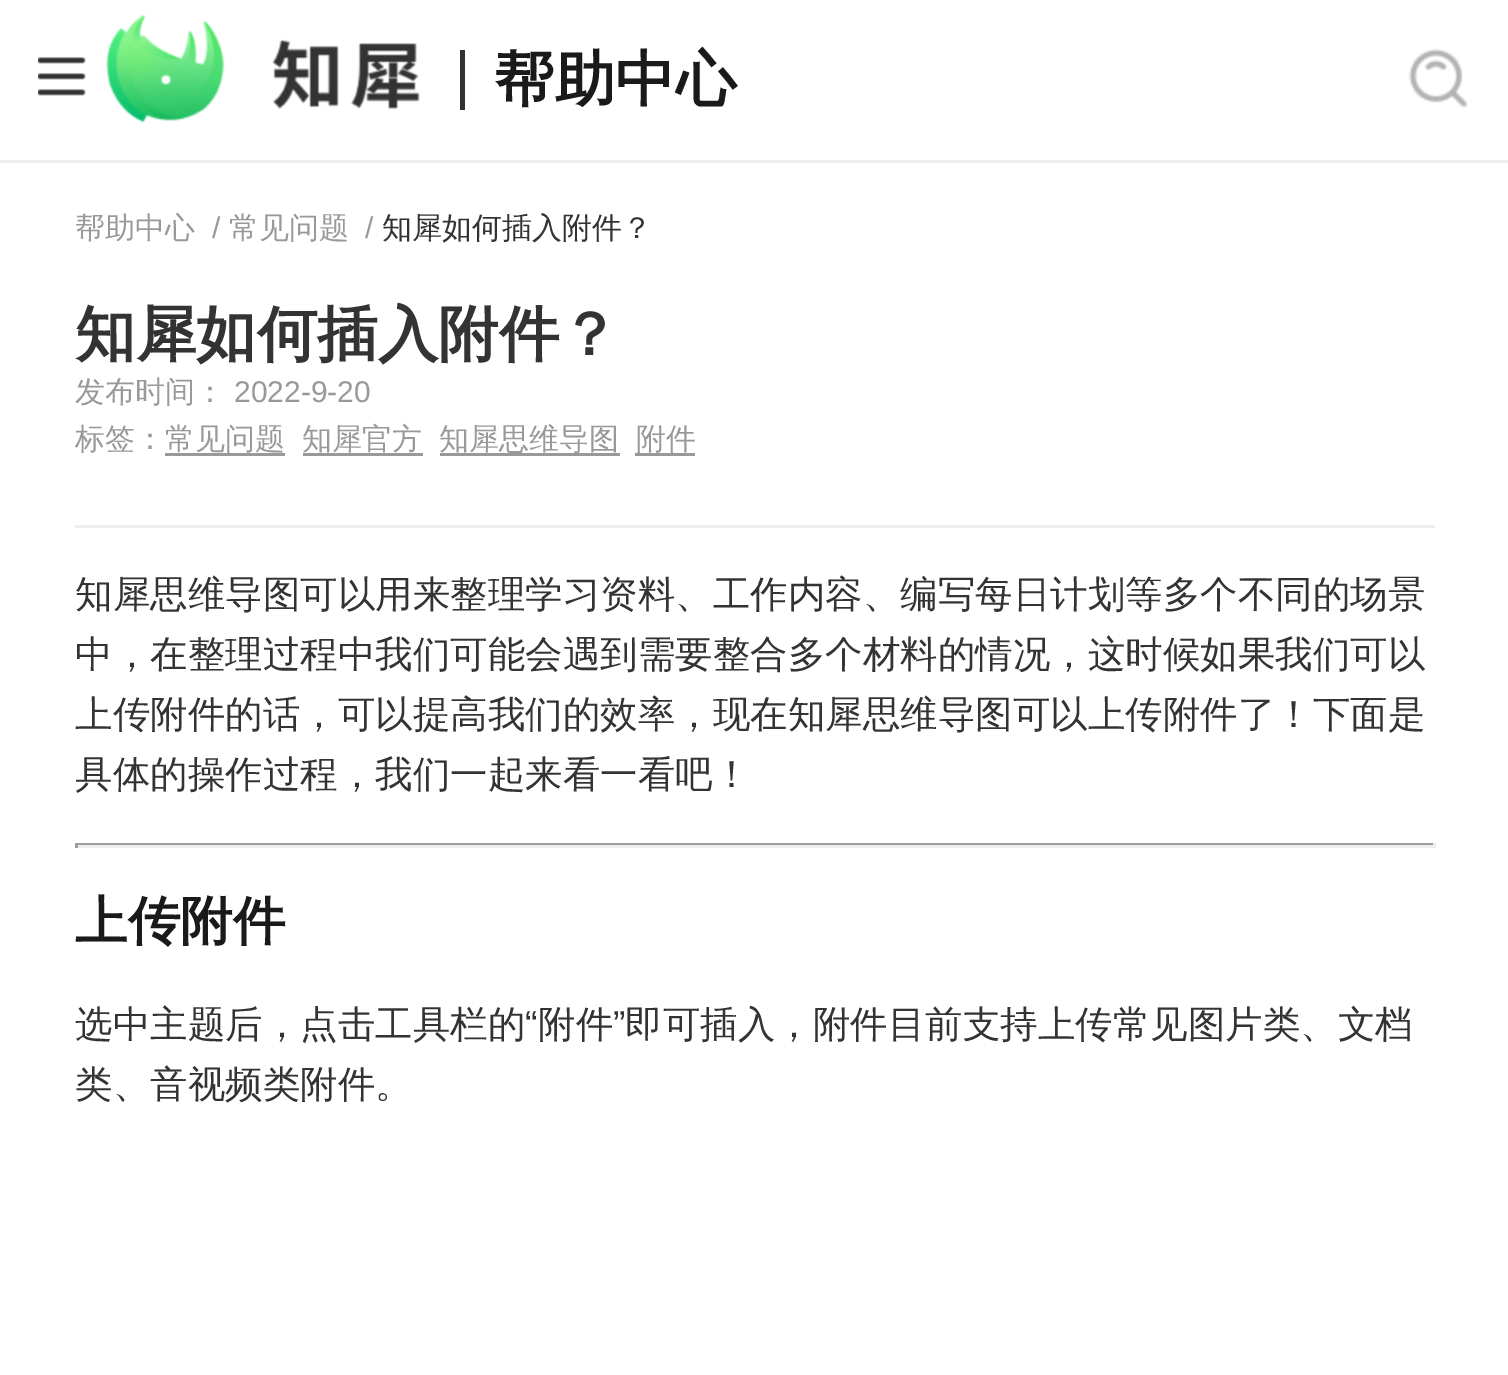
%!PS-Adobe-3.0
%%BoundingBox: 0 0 1508 1375
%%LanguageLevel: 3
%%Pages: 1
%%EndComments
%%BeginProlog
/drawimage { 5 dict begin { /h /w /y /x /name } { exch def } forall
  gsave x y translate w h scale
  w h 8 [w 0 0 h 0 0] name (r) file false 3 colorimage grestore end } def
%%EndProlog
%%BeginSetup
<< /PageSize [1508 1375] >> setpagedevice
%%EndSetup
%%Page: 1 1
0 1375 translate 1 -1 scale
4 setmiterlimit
1 setgray
0 0 1508 1375 rectfill
(images/1.raw) 38 56 48 40 drawimage
(images/2.raw) 105 14 315 109 drawimage
0.2 setgray
460 50 5 60 rectfill
(images/3.raw) 1408 48 60 60 drawimage
0.933 setgray
0 160 1508 3 rectfill
75 525 1360 3 rectfill
0.6 setgray
303 453 120 3 rectfill
440 453 180 3 rectfill
635 453 60 3 rectfill
165 453 120 3 rectfill
0.624 setgray
75 843 1360 2 rectfill
0.933 setgray
1433 843 3 5 rectfill
75 845 1360 3 rectfill
0.624 setgray
75 843 3 5 rectfill
/WenQuanYiZenHei-Bold [60.5 0 0 -60.5 0 0] selectfont
0.102 setgray
494 100 moveto (帮助中心) show
/WenQuanYiZenHei-Medium [30 0 0 -30 0 0] selectfont
0.6 setgray
75 238 moveto (帮助中心) show
/LiberationSans-Regular [30 0 0 -30 0 0] selectfont
212 238 moveto (/) show
gsave
230 213 120 35 rectclip
/WenQuanYiZenHei-Medium [30 0 0 -30 0 0] selectfont
229 238 moveto (常见问题) show
grestore
365 238 moveto (/) show
/WenQuanYiZenHei-Medium [30 0 0 -30 0 0] selectfont
0.2 setgray
382 238 moveto (知犀如何插入附件？) show
/WenQuanYiZenHei-Bold [60.5 0 0 -60.5 0 0] selectfont
75 355 moveto (知犀如何插入附件？) show
/WenQuanYiZenHei-Medium [30 0 0 -30 0 0] selectfont
0.6 setgray
75 402 moveto (发布时间：) show
/LiberationSans-Regular [30 0 0 -30 0 0] selectfont
234 402 moveto (2022-9-20) show
/WenQuanYiZenHei-Medium [30 0 0 -30 0 0] selectfont
75 449 moveto (标签：常见问题) show
302 449 moveto (知犀官方) show
439 449 moveto (知犀思维导图) show
636 449 moveto (附件) show
/WenQuanYiZenHei-Medium [37.5 0 0 -37.5 0 0] selectfont
0.2 setgray
75 607 moveto (知犀思维导图可以用来整理学习资料、工作内容、编写每日计划等多个不同的场景) show
75 667 moveto (中，在整理过程中我们可能会遇到需要整合多个材料的情况，这时候如果我们可以) show
75 727 moveto (上传附件的话，可以提高我们的效率，现在知犀思维导图可以上传附件了！下面是) show
75 787 moveto (具体的操作过程，我们一起来看一看吧！) show
/WenQuanYiZenHei-Bold [52.5 0 0 -52.5 0 0] selectfont
0.102 setgray
75 939 moveto (上传附件) show
/WenQuanYiZenHei-Medium [37.5 0 0 -37.5 0 0] selectfont
0.2 setgray
75 1037 moveto (选中主题后，点击工具栏的) show
/LiberationSans-Regular [37.5 0 0 -37.5 0 0] selectfont
525 1037 moveto (“) show
/WenQuanYiZenHei-Medium [37.5 0 0 -37.5 0 0] selectfont
538 1037 moveto (附件) show
/LiberationSans-Regular [37.5 0 0 -37.5 0 0] selectfont
613 1037 moveto (”) show
/WenQuanYiZenHei-Medium [37.5 0 0 -37.5 0 0] selectfont
625 1037 moveto (即可插入，附件目前支持上传常见图片类、文档) show
75 1097 moveto (类、音视频类附件。) show
showpage
%%EOF
